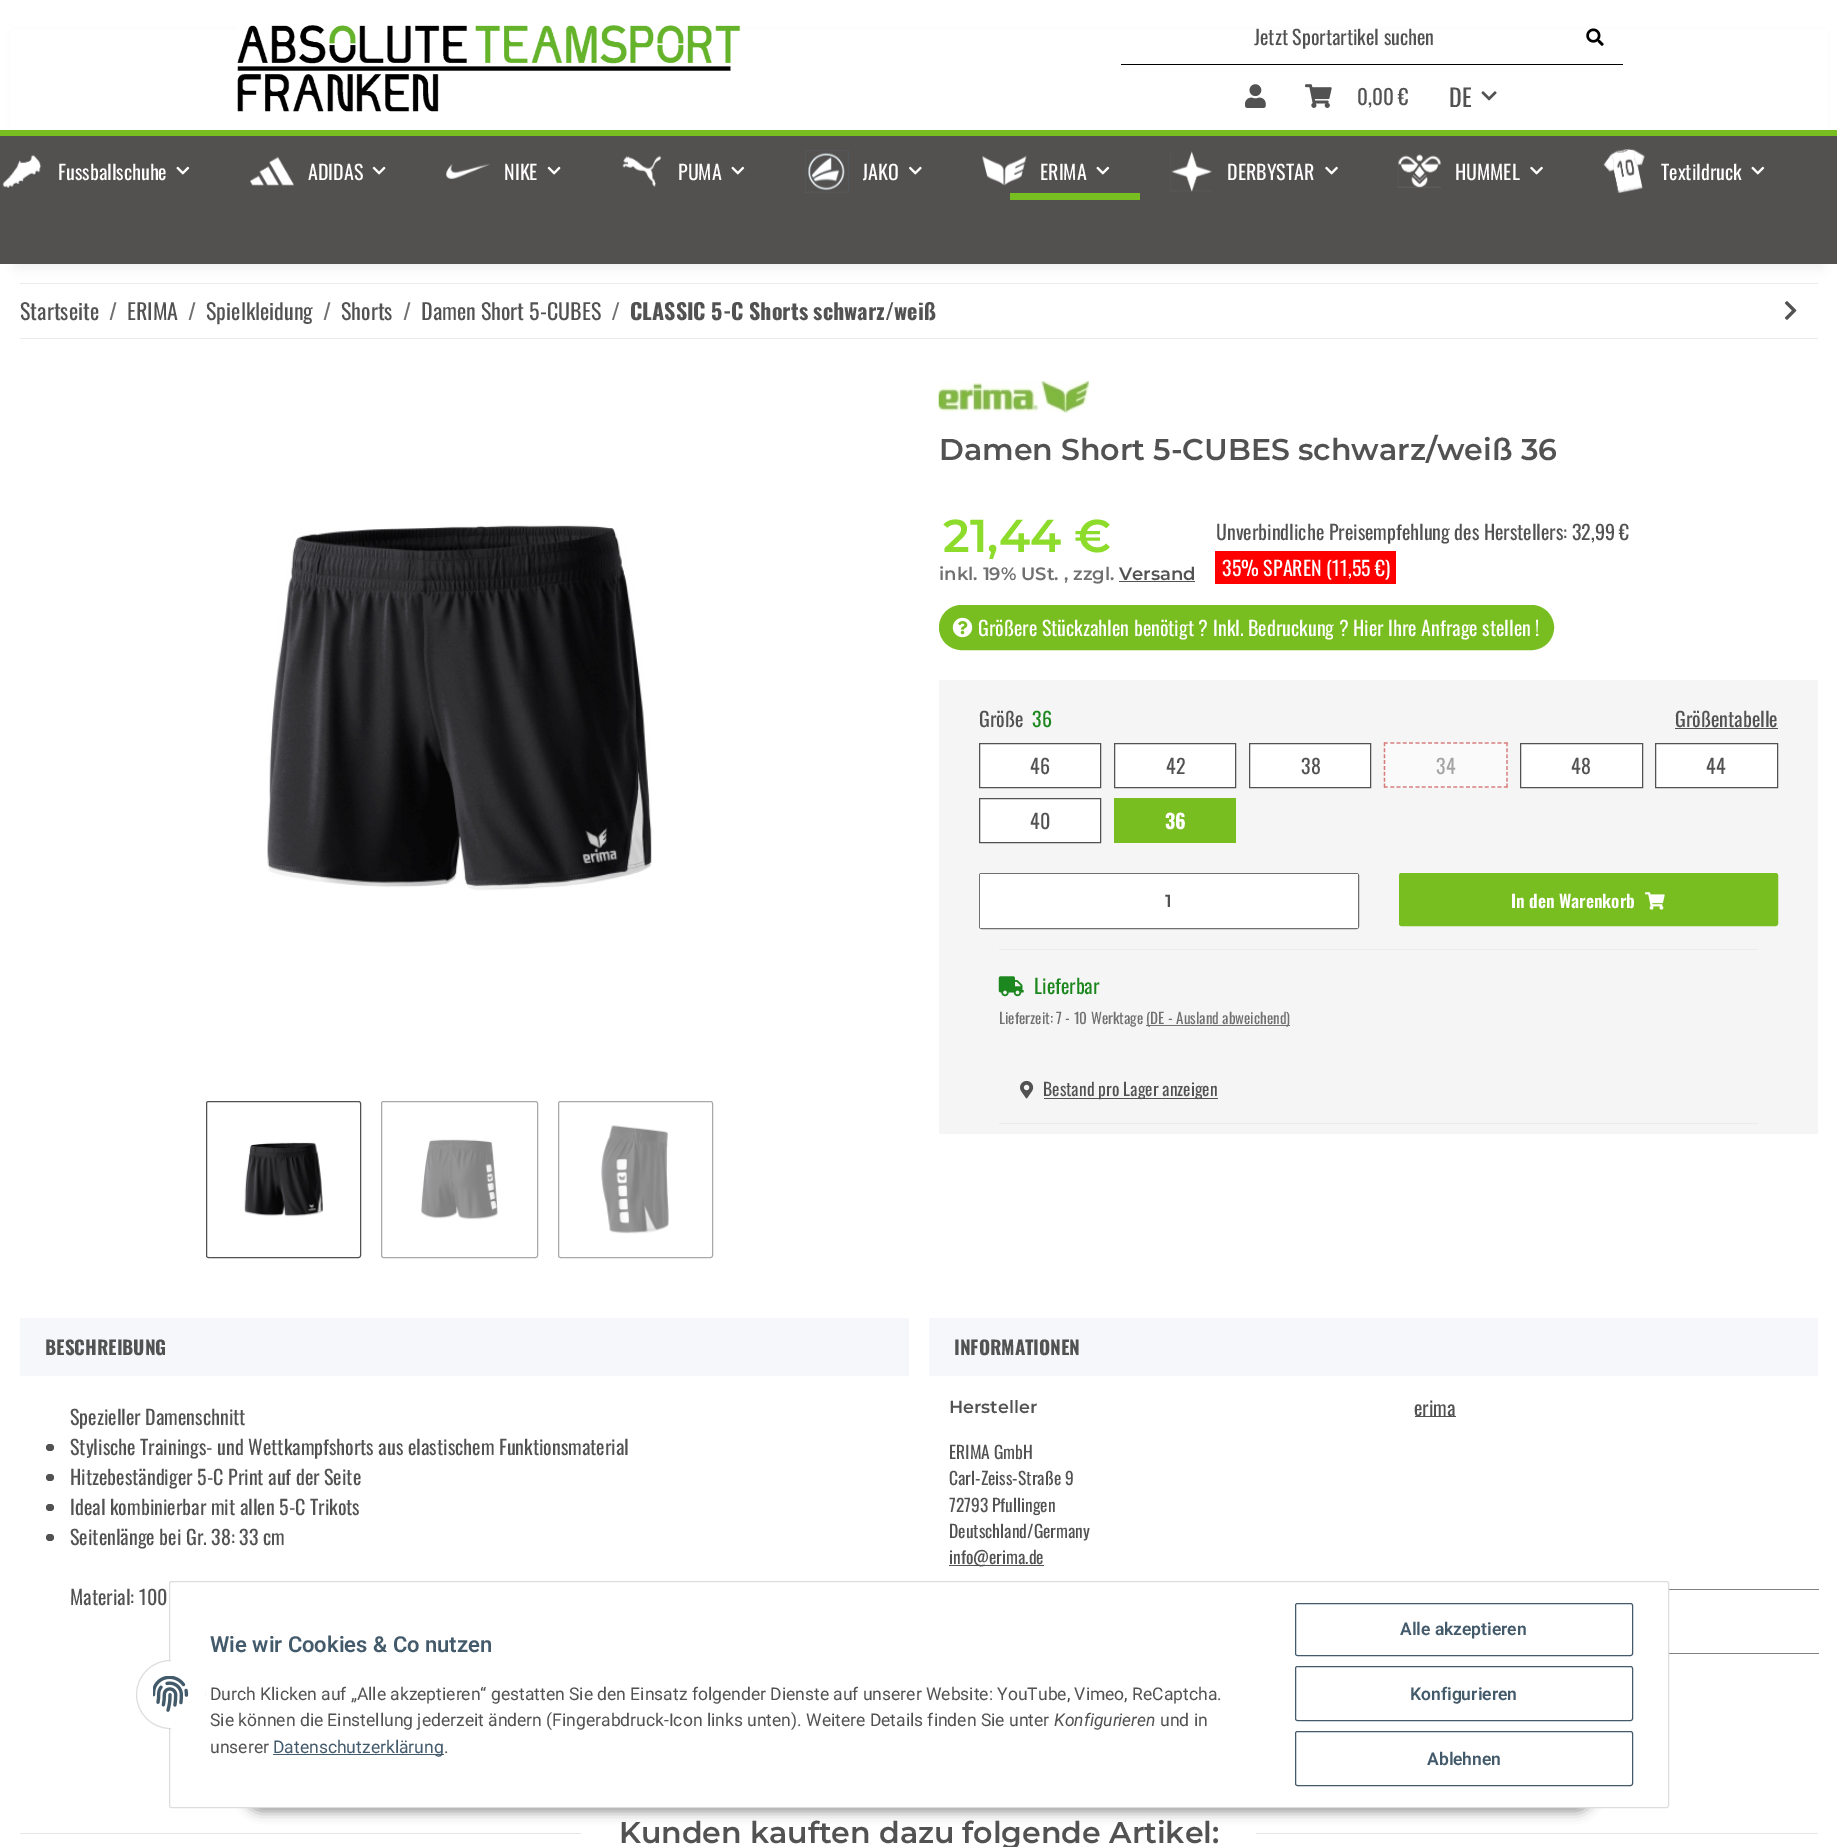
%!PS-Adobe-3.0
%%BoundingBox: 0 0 1837 1847
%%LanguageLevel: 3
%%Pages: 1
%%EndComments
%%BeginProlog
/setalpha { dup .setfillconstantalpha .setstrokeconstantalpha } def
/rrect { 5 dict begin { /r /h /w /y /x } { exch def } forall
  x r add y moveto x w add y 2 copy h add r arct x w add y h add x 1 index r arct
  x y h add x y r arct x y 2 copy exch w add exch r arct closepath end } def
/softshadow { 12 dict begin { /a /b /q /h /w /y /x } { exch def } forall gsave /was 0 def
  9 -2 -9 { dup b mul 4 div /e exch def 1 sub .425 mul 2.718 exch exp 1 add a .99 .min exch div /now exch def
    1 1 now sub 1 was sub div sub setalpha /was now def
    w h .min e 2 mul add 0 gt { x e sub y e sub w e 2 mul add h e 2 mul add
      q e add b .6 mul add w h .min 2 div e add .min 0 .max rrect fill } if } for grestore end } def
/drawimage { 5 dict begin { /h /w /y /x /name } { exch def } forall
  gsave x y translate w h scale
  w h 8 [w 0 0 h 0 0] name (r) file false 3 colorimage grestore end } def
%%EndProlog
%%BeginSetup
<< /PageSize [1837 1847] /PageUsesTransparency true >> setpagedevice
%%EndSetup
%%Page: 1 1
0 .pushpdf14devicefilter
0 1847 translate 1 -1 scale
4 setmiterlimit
1 setgray
0 0 1837 1847 rectfill
0.922 setgray
20 283 1798 1 rectfill
0 setgray
15 35 1808 234 0 5.5 0.06 softshadow
1 setgray
10 30 1818 100 rectfill
(images/1.raw) 237 25 504 87 drawimage
0 setgray
1121 64 502 1 rectfill
(images/2.raw) 1586 28 18 18 drawimage
(images/3.raw) 1245 84 21 24 drawimage
(images/4.raw) 1305 84 27 24 drawimage
(images/5.raw) 1481 91 16 10 drawimage
0.325 0.314 0.314 setrgbcolor
0 136 1837 128 rectfill
0.471 0.745 0.125 setrgbcolor
0 130 1837 6 rectfill
(images/6.raw) 2 154 40 34 drawimage
(images/7.raw) 176 166 14 9 drawimage
(images/8.raw) 250 156 44 30 drawimage
(images/9.raw) 372 166 14 9 drawimage
(images/10.raw) 446 163 44 16 drawimage
(images/9.raw) 547 166 14 9 drawimage
(images/11.raw) 622 155 40 32 drawimage
(images/7.raw) 731 166 14 9 drawimage
(images/12.raw) 805 150 44 43 drawimage
(images/13.raw) 909 166 13 9 drawimage
(images/14.raw) 982 155 45 31 drawimage
(images/7.raw) 1096 166 14 9 drawimage
1010 193 130 7 rectfill
(images/15.raw) 1170 151 42 41 drawimage
(images/16.raw) 1325 166 13 9 drawimage
(images/17.raw) 1397 154 45 34 drawimage
(images/16.raw) 1530 166 13 9 drawimage
(images/18.raw) 1603 149 42 44 drawimage
(images/7.raw) 1751 166 14 9 drawimage
0.922 setgray
20 338 1798 1 rectfill
(images/19.raw) 1784 301 13 19 drawimage
(images/20.raw) 267 525 385 366 drawimage
0.322 setgray
206.5 1101.5 154 156 2 rrect stroke
(images/21.raw) 244 1142 79 75 drawimage
0.663 setgray
381.5 1101.5 156 156 2 rrect stroke
(images/22.raw) 420 1139 78 81 drawimage
558.5 1101.5 154 156 2 rrect stroke
(images/23.raw) 601 1125 68 109 drawimage
(images/24.raw) 938 381 151 32 drawimage
0.322 setgray
1119 581 76 1 rectfill
1 0 0 setrgbcolor
1215 551 181 33 rectfill
0.471 0.745 0.125 setrgbcolor
940.5 606.5 612 42 21 rrect gsave fill grestore
3 setlinewidth
stroke
(images/25.raw) 952 617 21 21 drawimage
0.961 setgray
939 680 879 454 rectfill
0.322 setgray
1675 728 103 1 rectfill
1 setgray
newpath 979.5 743.5 moveto 1100.5 743.5 lineto 1100.5 787.5 lineto 979.5 787.5 lineto closepath gsave fill grestore
0.322 setgray
1 setlinewidth
stroke
1 setgray
newpath 1114.5 743.5 moveto 1235.5 743.5 lineto 1235.5 787.5 lineto 1114.5 787.5 lineto closepath gsave fill grestore
0.322 setgray
stroke
1 setgray
newpath 1249.5 743.5 moveto 1370.5 743.5 lineto 1370.5 787.5 lineto 1249.5 787.5 lineto closepath gsave fill grestore
0.322 setgray
stroke
0.98 setgray
1384 743 124 45 rectfill
0.843 0.482 0.482 setrgbcolor
1.2 setlinewidth
[3.75 2.56] 0 setdash
newpath 1384 743 moveto 1507.5 743 lineto stroke
[3.75 2.14] 0 setdash
newpath 1507 742.5 moveto 1507 787.5 lineto stroke
[3.75 2.56] 0 setdash
newpath 1384 787 moveto 1507.5 787 lineto stroke
[3.75 2.14] 0 setdash
newpath 1384.5 742.5 moveto 1384.5 787.5 lineto stroke
1 setgray
newpath 1520.5 743.5 moveto 1642.5 743.5 lineto 1642.5 787.5 lineto 1520.5 787.5 lineto closepath gsave fill grestore
0.322 setgray
1 setlinewidth
[] 0 setdash
stroke
1 setgray
newpath 1655.5 743.5 moveto 1777.5 743.5 lineto 1777.5 787.5 lineto 1655.5 787.5 lineto closepath gsave fill grestore
0.322 setgray
stroke
1 setgray
newpath 979.5 798.5 moveto 1100.5 798.5 lineto 1100.5 842.5 lineto 979.5 842.5 lineto closepath gsave fill grestore
0.322 setgray
stroke
0.471 0.745 0.125 setrgbcolor
1114 798 122 45 rectfill
0.439 setgray
979.5 873.5 379 55 2 rrect stroke
1 setgray
980 874 378 54 rectfill
0.471 0.745 0.125 setrgbcolor
1399.5 873.5 378 52 2 rrect gsave fill grestore
stroke
(images/26.raw) 1645 892 20 18 drawimage
0.922 setgray
999 949 759 1 rectfill
(images/27.raw) 998 976 26 21 drawimage
0.439 setgray
1146 1025 144 1 rectfill
0.922 setgray
999 1123 759 1 rectfill
(images/28.raw) 1020 1080 14 19 drawimage
0.322 setgray
1044 1098 174 1 rectfill
0.961 0.969 0.98 setrgbcolor
newpath 21 1318 moveto 908 1318 lineto 908.5 1318 909 1318.5 909 1319 curveto 909 1376 lineto 20 1376 lineto 20 1319 lineto 20 1318.5 20.5 1318 21 1318 curveto closepath fill
0.322 setgray
46 1444 8 7 3.5 rrect fill
46 1474 8 7 3.5 rrect fill
46 1504 8 7 3.5 rrect fill
46 1534 8 7 3.5 rrect fill
0.961 0.969 0.98 setrgbcolor
newpath 930 1318 moveto 1817 1318 lineto 1817.5 1318 1818 1318.5 1818 1319 curveto 1818 1376 lineto 929 1376 lineto 929 1319 lineto 929 1318.5 929.5 1318 930 1318 curveto closepath fill
0.322 setgray
1415 1416 41 1 rectfill
0.502 setgray
1669 1589 150 1 rectfill
0.322 setgray
949 1565 95 1 rectfill
0.502 setgray
1669 1653 150 1 rectfill
0.902 setgray
20 1833 561 1 rectfill
1256 1833 562 1 rectfill
0 setgray
245 1771 1348 40 20 6 0.45 softshadow
1 setgray
169.5 1581.5 1499 226 2 rrect gsave fill grestore
0.867 setgray
stroke
1 setgray
newpath 170.5 1694.5 34 0 360 arc closepath gsave fill grestore
0.867 setgray
stroke
1 setgray
171 1660 34 69 rectfill
(images/29.raw) 153 1676 36 36 drawimage
0.263 0.353 0.42 setrgbcolor
273 1754 171 1 rectfill
1295.5 1603.5 337 52 2 rrect stroke
1295.5 1666.5 337 54 2 rrect stroke
1295.5 1731.5 337 54 2 rrect stroke
/Oswald-Regular [20 0 0 -20 0 0] selectfont
0.322 setgray
1254 45 moveto (Jetzt Sportartikel suchen) show
/Oswald-Regular [21 0 0 -21 0 0] selectfont
1357 105 moveto (0,00 €) show
/Oswald-Regular [24 0 0 -24 0 0] selectfont
1449 107 moveto (DE) show
/Oswald-Regular [20 0 0 -20 0 0] selectfont
1 setgray
58 180 moveto (Fussballschuhe) show
308 180 moveto (ADIDAS) show
504 180 moveto (NIKE) show
678 180 moveto (PUMA) show
gsave
863 156 36 30 rectclip
862 180 moveto (JAKO) show
grestore
1040 180 moveto (ERIMA) show
1227 180 moveto (DERBYSTAR) show
1455 180 moveto (HUMMEL) show
1661 180 moveto (Textildruck) show
/Oswald-Regular [22 0 0 -22 0 0] selectfont
0.322 setgray
20 320 moveto (Startseite) show
0.439 setgray
109 320 moveto (/) show
0.322 setgray
127 320 moveto (ERIMA) show
0.439 setgray
188 320 moveto (/) show
0.322 setgray
206 320 moveto (Spielkleidung) show
0.439 setgray
323 320 moveto (/) show
0.322 setgray
341 320 moveto (Shorts) show
0.439 setgray
403 320 moveto (/) show
0.322 setgray
421 320 moveto (Damen Short 5-CUBES) show
/Oswald-Bold [22 0 0 -22 0 0] selectfont
0.439 setgray
611 320 moveto (/) show
0.322 setgray
630 320 moveto (CLASSIC 5-C Shorts schwarz/weiß) show
/Montserrat-SemiBold [30 0 0 -30 0 0] selectfont
939 460 moveto (Damen Short 5-CUBES schwarz/weiß 36) show
/Montserrat-SemiBold [46 0 0 -46 0 0] selectfont
0.553 0.859 0.169 setrgbcolor
943 552 moveto (21,44 €) show
/Montserrat-SemiBold [18 0 0 -18 0 0] selectfont
0.439 setgray
939 580 moveto (inkl. 19% USt. , zzgl.) show
0.322 setgray
1119 580 moveto (Versand) show
/Oswald-Regular [20 0 0 -20 0 0] selectfont
1216 540 moveto (Unverbindliche Preisempfehlung des Herstellers: 32,99 €) show
1 setgray
1222 576 moveto (35% SPAREN \(11,55 €\)) show
978 636 moveto (Größere Stückzahlen benötigt ? Inkl. Bedruckung ? Hier Ihre Anfrage stellen !) show
0.322 setgray
979 727 moveto (Größe) show
0.11 0.529 0.118 setrgbcolor
1032 727 moveto (36) show
0.322 setgray
1675 727 moveto (Größentabelle) show
1030 774 moveto (46) show
1166 774 moveto (42) show
1301 774 moveto (38) show
0.643 setgray
1436 774 moveto (34) show
0.322 setgray
1571 774 moveto (48) show
1706 774 moveto (44) show
1030 829 moveto (40) show
/Oswald-Bold [20 0 0 -20 0 0] selectfont
1 setgray
1165 829 moveto (36) show
/Montserrat-SemiBold [17.5 0 0 -17.5 0 0] selectfont
0.322 setgray
1165 907 moveto (1) show
/Oswald-SemiBold [17.5 0 0 -17.5 0 0] selectfont
1 setgray
1511 908 moveto (In den Warenkorb) show
/Oswald-Regular [20 0 0 -20 0 0] selectfont
0.11 0.529 0.118 setrgbcolor
1034 994 moveto (Lieferbar) show
/Oswald-Regular [15 0 0 -15 0 0] selectfont
0.439 setgray
999 1024 moveto (Lieferzeit: 7 - 10 Werktage) show
1146 1024 moveto (\(DE - Ausland abweichend\)) show
/Oswald-Regular [17.5 0 0 -17.5 0 0] selectfont
0.322 setgray
1043 1096 moveto (Bestand pro Lager anzeigen) show
/Oswald-Bold [19 0 0 -19 0 0] selectfont
45 1355 moveto (BESCHREIBUNG) show
/Oswald-Regular [20 0 0 -20 0 0] selectfont
70 1425 moveto (Spezieller Damenschnitt) show
70 1455 moveto (Stylische Trainings- und Wettkampfshorts aus elastischem Funktionsmaterial) show
70 1485 moveto (Hitzebeständiger 5-C Print auf der Seite) show
70 1515 moveto (Ideal kombinierbar mit allen 5-C Trikots) show
70 1545 moveto (Seitenlänge bei Gr. 38: 33 cm) show
70 1605 moveto (Material: 100) show
/Oswald-Bold [19 0 0 -19 0 0] selectfont
954 1355 moveto (INFORMATIONEN) show
/Montserrat-SemiBold [17.5 0 0 -17.5 0 0] selectfont
949 1413 moveto (Hersteller) show
/Oswald-Regular [20 0 0 -20 0 0] selectfont
1414 1416 moveto (erima) show
/Oswald-Regular [17.5 0 0 -17.5 0 0] selectfont
949 1459 moveto (ERIMA GmbH) show
949 1485 moveto (Carl-Zeiss-Straße 9) show
949 1512 moveto (72793 Pfullingen) show
949 1538 moveto (Deutschland/Germany) show
949 1564 moveto (info@erima.de) show
/Montserrat-SemiBold [30 0 0 -30 0 0] selectfont
619 1843 moveto (Kunden kauften dazu folgende Artikel:) show
/Roboto-SemiBold [22 0 0 -22 0 0] selectfont
0.263 0.353 0.42 setrgbcolor
210 1652 moveto (Wie wir Cookies & Co nutzen) show
/Roboto-Regular [17.5 0 0 -17.5 0 0] selectfont
0.322 setgray
210 1700 moveto (Durch Klicken auf „Alle akzeptieren“ gestatten Sie den Einsatz folgender Dienste auf unserer Website: YouTube, Vimeo, ReCaptcha.) show
210 1726 moveto (Sie können die Einstellung jederzeit ändern \(Fingerabdruck-Icon links unten\). Weitere Details finden Sie unter) show
/Roboto-Italic [17.5 0 0 -17.5 0 0] selectfont
1054 1726 moveto (Konfigurieren) show
/Roboto-Regular [17.5 0 0 -17.5 0 0] selectfont
1160 1726 moveto (und in) show
210 1753 moveto (unserer) show
0.263 0.353 0.42 setrgbcolor
273 1753 moveto (Datenschutzerklärung) show
0.322 setgray
444 1753 moveto (.) show
/Roboto-SemiBold [17.5 0 0 -17.5 0 0] selectfont
0.263 0.353 0.42 setrgbcolor
1400 1635 moveto (Alle akzeptieren) show
1410 1700 moveto (Konfigurieren) show
1427 1765 moveto (Ablehnen) show
.poppdf14devicefilter showpage
%%EOF
